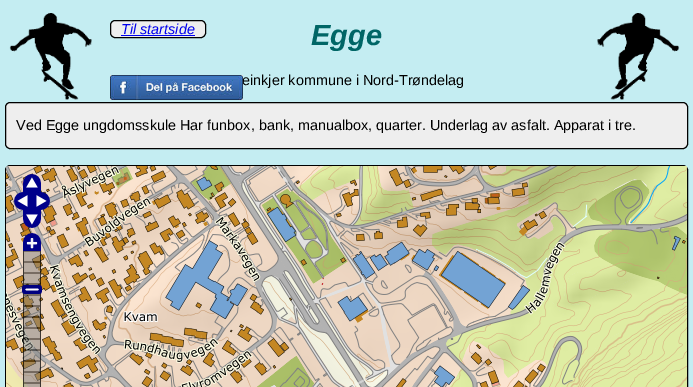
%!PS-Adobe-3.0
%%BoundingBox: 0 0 693 387
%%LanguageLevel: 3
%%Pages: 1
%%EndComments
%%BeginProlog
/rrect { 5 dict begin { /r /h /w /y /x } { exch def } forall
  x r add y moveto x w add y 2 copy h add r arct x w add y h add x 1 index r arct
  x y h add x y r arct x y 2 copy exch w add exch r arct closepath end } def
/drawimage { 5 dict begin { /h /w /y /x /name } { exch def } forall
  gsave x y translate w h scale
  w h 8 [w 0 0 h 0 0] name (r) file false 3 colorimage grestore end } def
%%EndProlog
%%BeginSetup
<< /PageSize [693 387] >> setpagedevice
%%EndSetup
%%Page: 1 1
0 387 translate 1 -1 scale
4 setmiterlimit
0.769 0.929 0.949 setrgbcolor
0 0 693 387 rectfill
(images/1.raw) 9 13 83 87 drawimage
0.933 setgray
110.5 20.5 95 17 4.5 rrect gsave fill grestore
0 setgray
stroke
0 0 0.933 setrgbcolor
121 35 74 1 rectfill
(images/2.raw) 597 13 83 87 drawimage
0.933 setgray
5.5 102.5 682 46 4.5 rrect gsave fill grestore
0 setgray
stroke
5.5 165.5 682 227 4.5 rrect stroke
(images/4.raw) 6 166 206 138 drawimage
(images/5.raw) 212 166 256 138 drawimage
(images/6.raw) 468 166 219 138 drawimage
(images/7.raw) 6 304 206 83 drawimage
(images/8.raw) 212 304 256 83 drawimage
(images/9.raw) 468 304 219 83 drawimage
(images/10.raw) 23 174 18 18 drawimage
(images/11.raw) 14 192 18 18 drawimage
(images/12.raw) 32 192 18 18 drawimage
(images/13.raw) 23 210 18 18 drawimage
(images/14.raw) 23 233 18 18 drawimage
(images/15.raw) 23 251 18 136 drawimage
(images/16.raw) 22 285 20 9 drawimage
/LiberationSans-Italic [14.4 0 0 -14.4 0 0] selectfont
0 0 0.933 setrgbcolor
121 34 moveto (Til startside) show
/LiberationSans-BoldItalic [29 0 0 -29 0 0] selectfont
0 0.4 0.4 setrgbcolor
311 45 moveto (Egge) show
/LiberationSans-Regular [14.4 0 0 -14.4 0 0] selectfont
0 setgray
242 85 moveto (einkjer kommune i Nord-Trøndelag) show
(images/3.raw) 110 75 133 25 drawimage
16 130 moveto (Ved Egge ungdomsskule Har funbox, bank, manualbox, quarter. Underlag av asfalt. Apparat i tre.) show
showpage
%%EOF
